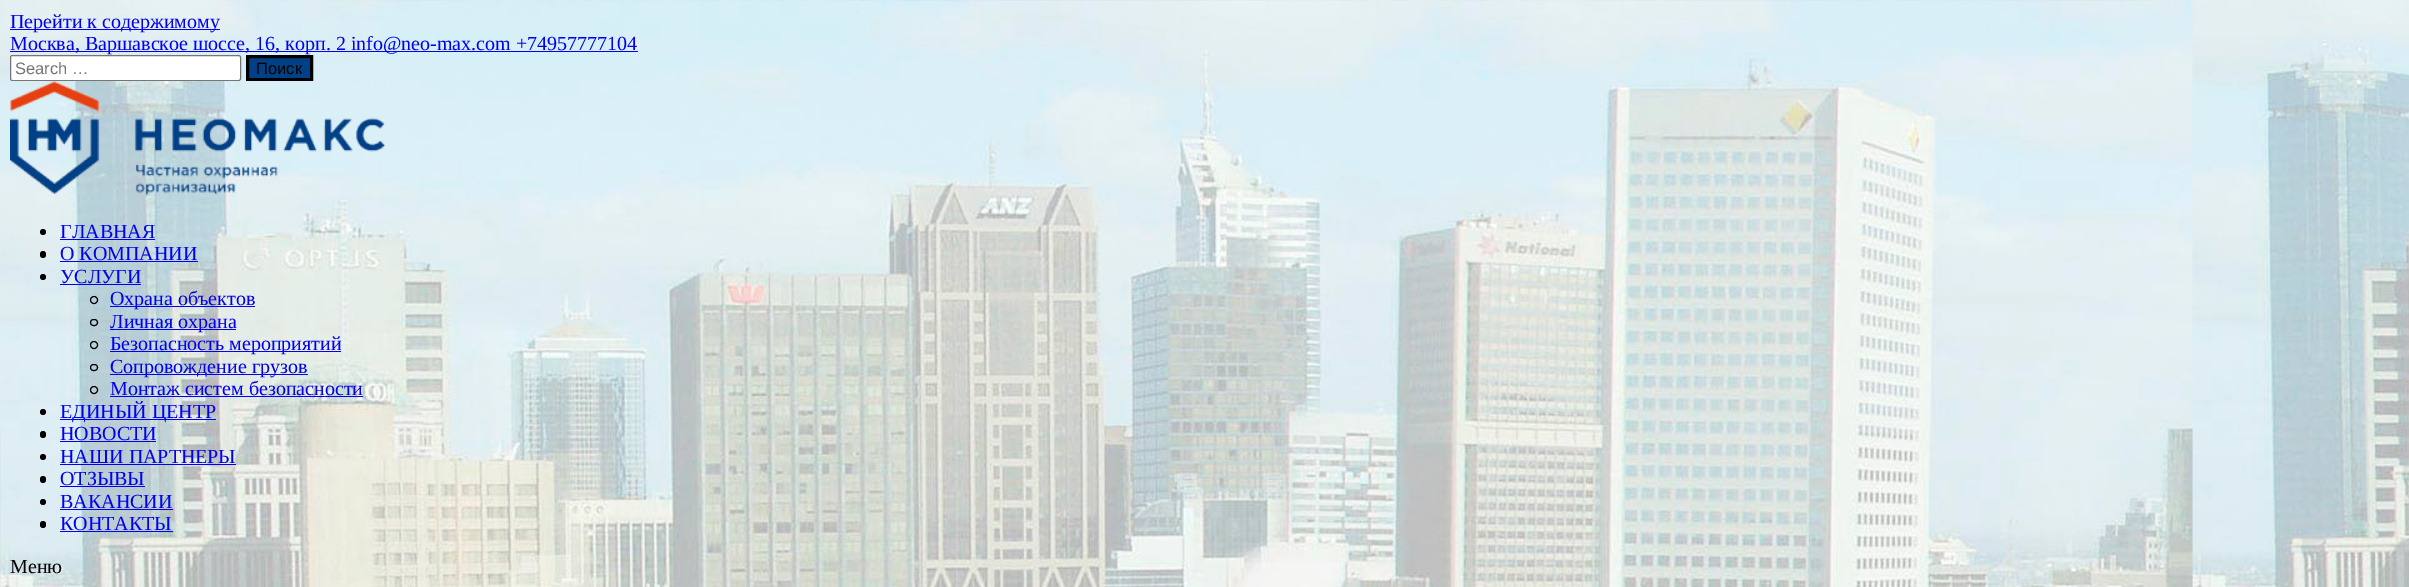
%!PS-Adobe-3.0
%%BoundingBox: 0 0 2409 587
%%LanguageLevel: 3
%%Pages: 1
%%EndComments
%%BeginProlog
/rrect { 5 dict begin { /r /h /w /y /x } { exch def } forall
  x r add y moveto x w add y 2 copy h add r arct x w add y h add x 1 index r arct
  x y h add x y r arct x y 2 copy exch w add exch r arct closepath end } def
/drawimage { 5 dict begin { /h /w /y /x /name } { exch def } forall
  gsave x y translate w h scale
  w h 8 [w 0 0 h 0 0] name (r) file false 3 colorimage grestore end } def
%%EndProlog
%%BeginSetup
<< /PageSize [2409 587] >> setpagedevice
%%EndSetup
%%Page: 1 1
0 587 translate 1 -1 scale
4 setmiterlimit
1 setgray
0 0 2409 587 rectfill
(images/1.raw) 0 0 2409 587 drawimage
0 0 0.933 setrgbcolor
10 29 210 1 rectfill
10 51 500 1 rectfill
510 51 128 1 rectfill
1 setgray
10.5 55.5 230 25 2 rrect gsave fill grestore
0.463 setgray
stroke
0 0.251 0.525 setrgbcolor
newpath 247.5 56.5 moveto 311.5 56.5 lineto 311.5 79.5 lineto 247.5 79.5 lineto closepath gsave fill grestore
0 setgray
3 setlinewidth
stroke
(images/2.raw) 10 81 375 114 drawimage
newpath 43 232 3 0 360 arc closepath fill
0 0 0.933 setrgbcolor
60 239 95 1 rectfill
0 setgray
40 251 6 7 3 rrect fill
0 0 0.933 setrgbcolor
60 261 138 1 rectfill
0 setgray
newpath 43 277 3 0 360 arc closepath fill
0 0 0.933 setrgbcolor
60 284 81 1 rectfill
0 setgray
1 setlinewidth
newpath 94 300 3.5 0 360 arc closepath stroke
0 0 0.933 setrgbcolor
110 306 145 1 rectfill
0 setgray
90.5 319.5 7 6 3 rrect stroke
0 0 0.933 setrgbcolor
110 329 126 1 rectfill
0 setgray
newpath 94 345 3.5 0 360 arc closepath stroke
0 0 0.933 setrgbcolor
110 351 231 1 rectfill
0 setgray
90.5 364.5 7 6 3 rrect stroke
0 0 0.933 setrgbcolor
110 374 198 1 rectfill
0 setgray
newpath 94 390 3.5 0 360 arc closepath stroke
0 0 0.933 setrgbcolor
110 396 253 1 rectfill
0 setgray
newpath 43 412 3 0 360 arc closepath fill
0 0 0.933 setrgbcolor
60 419 156 1 rectfill
0 setgray
40 431 6 7 3 rrect fill
0 0 0.933 setrgbcolor
60 441 96 1 rectfill
0 setgray
newpath 43 457 3 0 360 arc closepath fill
0 0 0.933 setrgbcolor
60 464 176 1 rectfill
0 setgray
40 476 6 7 3 rrect fill
0 0 0.933 setrgbcolor
60 486 85 1 rectfill
0 setgray
newpath 43 502 3 0 360 arc closepath fill
0 0 0.933 setrgbcolor
60 509 113 1 rectfill
0 setgray
40 521 6 7 3 rrect fill
0 0 0.933 setrgbcolor
60 531 113 1 rectfill
/LiberationSerif-Regular [20 0 0 -20 0 0] selectfont
10 28 moveto (Перейти к содержимому) show
10 50 moveto (Москва, Варшавское шоссе, 16, корп. 2 info@neo-max.com +74957777104) show
/LiberationSans-Regular [16.5 0 0 -16.5 0 0] selectfont
0.459 setgray
15 74 moveto (Search …) show
0 setgray
256 74 moveto (Поиск) show
/LiberationSerif-Regular [20 0 0 -20 0 0] selectfont
0 0 0.933 setrgbcolor
60 238 moveto (ГЛАВНАЯ) show
60 260 moveto (О КОМПАНИИ) show
60 283 moveto (УСЛУГИ) show
110 305 moveto (Охрана объектов) show
110 328 moveto (Личная охрана) show
110 350 moveto (Безопасность мероприятий) show
110 373 moveto (Сопровождение грузов) show
110 395 moveto (Монтаж систем безопасности) show
60 418 moveto (ЕДИНЫЙ ЦЕНТР) show
60 440 moveto (НОВОСТИ) show
60 463 moveto (НАШИ ПАРТНЕРЫ) show
60 485 moveto (ОТЗЫВЫ) show
60 508 moveto (ВАКАНСИИ) show
60 530 moveto (КОНТАКТЫ) show
0 setgray
10 573 moveto (Меню) show
showpage
%%EOF
